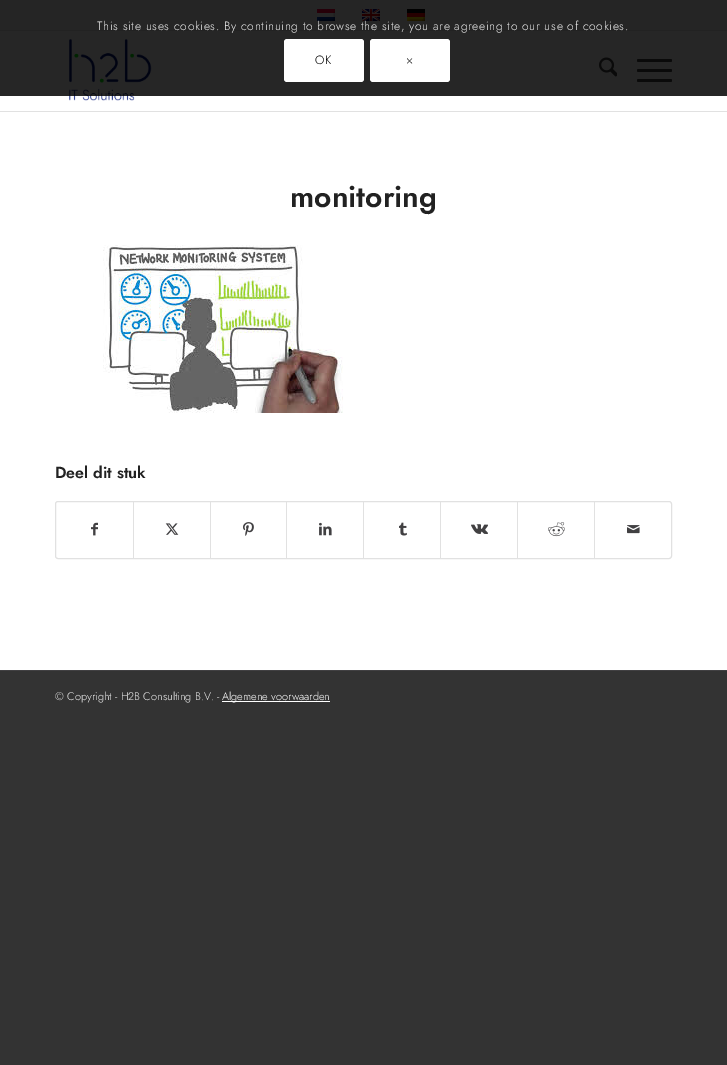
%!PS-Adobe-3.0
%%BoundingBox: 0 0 727 1065
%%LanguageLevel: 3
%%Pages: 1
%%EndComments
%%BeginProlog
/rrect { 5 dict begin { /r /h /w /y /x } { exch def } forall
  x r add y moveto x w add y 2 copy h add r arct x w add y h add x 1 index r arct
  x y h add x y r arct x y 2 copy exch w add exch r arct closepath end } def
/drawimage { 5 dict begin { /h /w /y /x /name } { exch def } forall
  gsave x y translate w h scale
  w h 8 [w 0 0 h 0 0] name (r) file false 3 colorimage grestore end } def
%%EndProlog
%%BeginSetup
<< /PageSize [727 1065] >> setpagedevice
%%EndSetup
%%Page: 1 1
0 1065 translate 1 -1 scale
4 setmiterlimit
0.2 setgray
0 0 727 1065 rectfill
0.149 setgray
0 31 727 65 rectfill
1 setgray
284 39 80 43 3 rrect fill
370 39 80 43 3 rrect fill
0 96 727 574 rectfill
0.145 setgray
0 0 727 30 rectfill
0.133 setgray
0 30 727 1 rectfill
(images/1.raw) 317 9 18 12 drawimage
(images/2.raw) 362 9 18 12 drawimage
(images/3.raw) 407 9 18 12 drawimage
0.882 setgray
0 111 727 1 rectfill
(images/4.raw) 69 39 83 62 drawimage
(images/5.raw) 599 57 18 20 drawimage
0.039 setgray
637 69 35 3 1.5 rrect fill
637 59 35 3 1.5 rrect fill
637 79 35 3 1.5 rrect fill
(images/6.raw) 103 245 240 168 drawimage
0.882 setgray
55.5 501.5 616 57 2.5 rrect stroke
(images/7.raw) 91 522 7 14 drawimage
133 502 1 56 rectfill
(images/8.raw) 165 523 14 12 drawimage
210 502 1 56 rectfill
(images/9.raw) 243 522 11 14 drawimage
286 502 1 56 rectfill
(images/10.raw) 319 522 13 14 drawimage
363 502 1 56 rectfill
(images/11.raw) 399 522 8 14 drawimage
440 502 1 56 rectfill
(images/12.raw) 471 524 17 10 drawimage
517 502 1 56 rectfill
(images/13.raw) 548 522 17 15 drawimage
594 502 1 56 rectfill
(images/14.raw) 627 525 13 9 drawimage
0.255 0.251 0.259 setrgbcolor
0 670 727 1 rectfill
1 setgray
222 701 108 1 rectfill
/Jost-Light [12 0 0 -12 0 0] selectfont
0.933 setgray
97 30 moveto 0.6 0 (This site uses cookies. By continuing to browse the site, you are agreeing to our use of cookies.) ashow
0 setgray
315 64 moveto 0.6 0 (OK) ashow
406 64 moveto 0.6 0 (×) ashow
/Jost-SemiBold [30 0 0 -30 0 0] selectfont
0.133 setgray
290 207 moveto (monitoring) show
/Jost-SemiBold [16 0 0 -16 0 0] selectfont
55 478 moveto (Deel dit stuk) show
/Jost-Light [11 0 0 -11 0 0] selectfont
0.933 setgray
55 700 moveto (© Copyright - H2B Consulting B.V. -) show
1 setgray
222 700 moveto (Algemene voorwaarden) show
showpage
%%EOF
